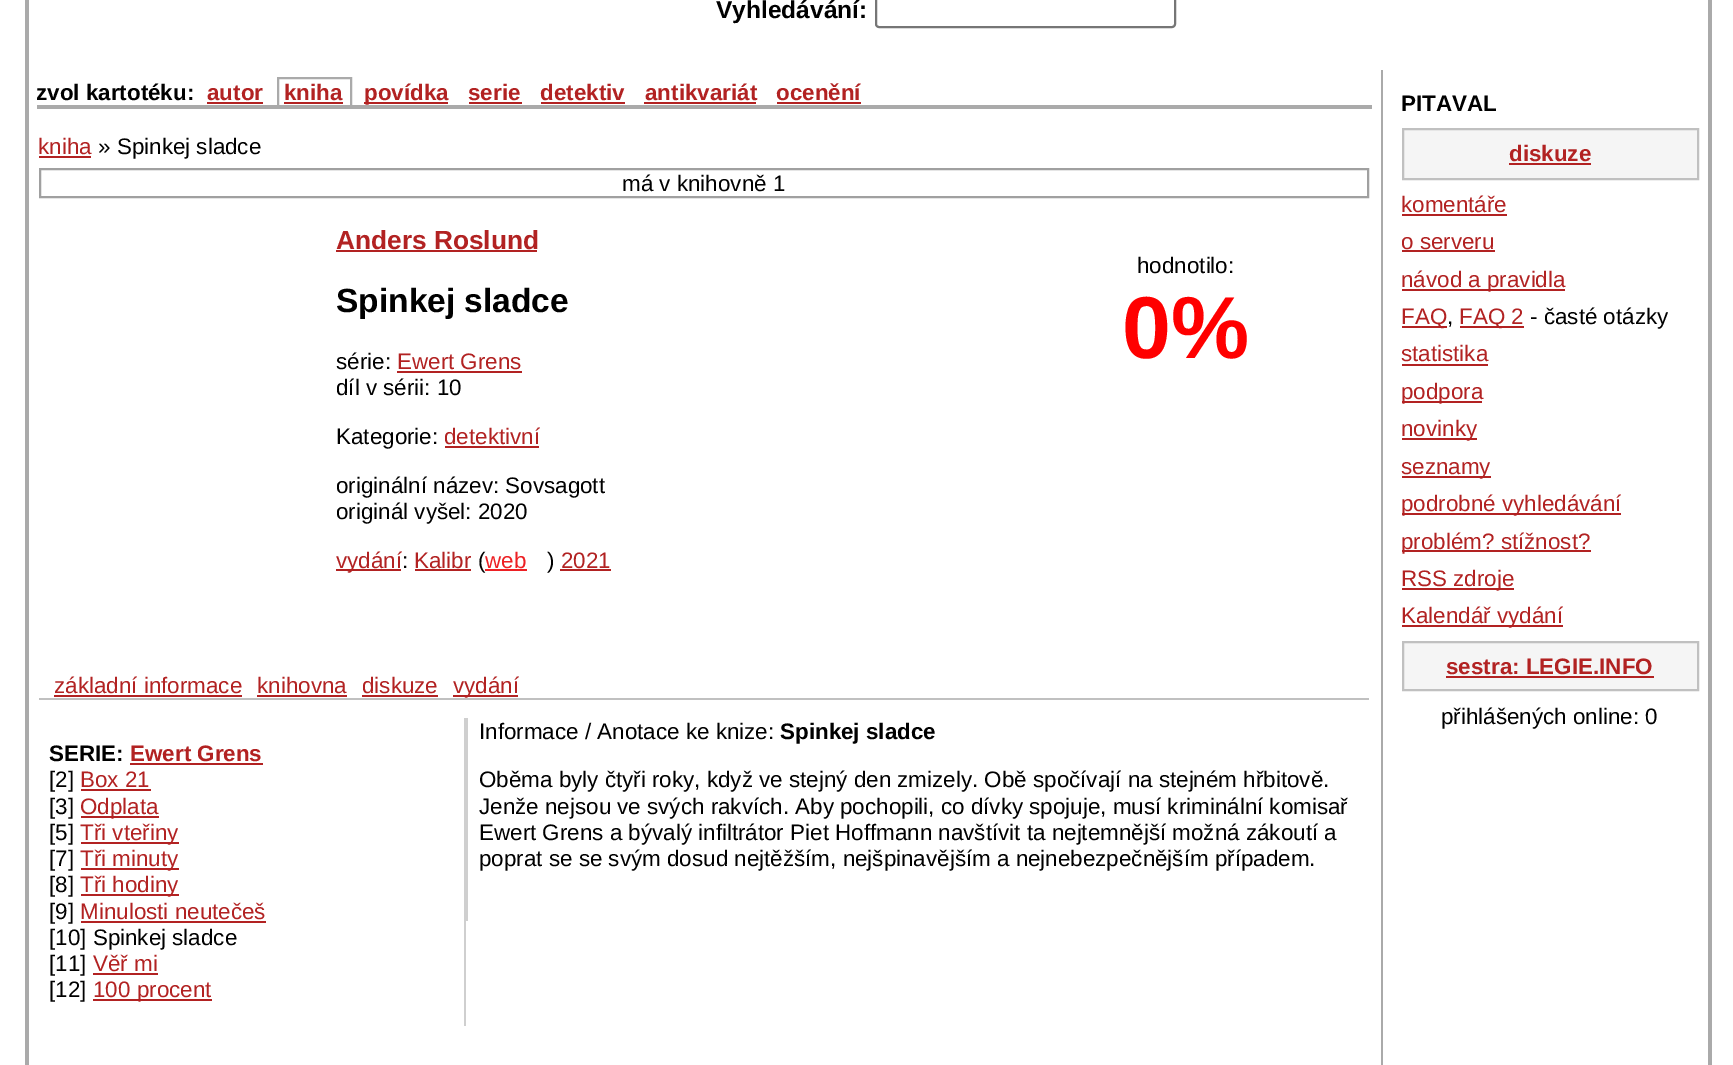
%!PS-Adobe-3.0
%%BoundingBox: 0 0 1733 1065
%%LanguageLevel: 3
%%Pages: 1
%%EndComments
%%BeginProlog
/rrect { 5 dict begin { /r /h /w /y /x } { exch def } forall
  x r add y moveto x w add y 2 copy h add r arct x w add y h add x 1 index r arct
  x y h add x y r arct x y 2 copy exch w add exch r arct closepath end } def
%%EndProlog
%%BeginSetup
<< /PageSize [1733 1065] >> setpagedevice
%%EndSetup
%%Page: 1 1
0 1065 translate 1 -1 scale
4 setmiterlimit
1 setgray
0 0 1733 1065 rectfill
0.667 setgray
1708 0 4 1065 rectfill
25 0 4 1065 rectfill
0.463 setgray
2 setlinewidth
876 -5 299 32 3 rrect stroke
0.667 setgray
1381 70 2 995 rectfill
37 105 1335 4 rectfill
0.698 0.133 0.133 setrgbcolor
207 102 56 2 rectfill
0.667 setgray
278 78 73 28 rectstroke
0.698 0.133 0.133 setrgbcolor
284 102 59 2 rectfill
364 102 84 2 rectfill
469 102 53 2 rectfill
541 102 84 2 rectfill
644 102 112 2 rectfill
777 102 84 2 rectfill
39 156 52 2 rectfill
0.627 setgray
40 169 1328 28 rectstroke
0.698 0.133 0.133 setrgbcolor
336 250 201 2 rectfill
397 371 125 2 rectfill
445 446 94 2 rectfill
336 569 65 2 rectfill
415 569 56 2 rectfill
0.929 0.125 0.141 setrgbcolor
485 569 42 2 rectfill
0.698 0.133 0.133 setrgbcolor
560 569 51 2 rectfill
0.753 setgray
39 698 1330 2 rectfill
0.698 0.133 0.133 setrgbcolor
54 695 188 2 rectfill
257 695 90 2 rectfill
362 695 76 2 rectfill
453 695 65 2 rectfill
0.812 setgray
464 718 2 308 rectfill
0.698 0.133 0.133 setrgbcolor
130 763 133 2 rectfill
81 789 70 2 rectfill
81 816 78 2 rectfill
81 842 98 2 rectfill
81 868 98 2 rectfill
81 894 98 2 rectfill
81 921 185 2 rectfill
93 973 65 2 rectfill
93 999 119 2 rectfill
0.812 setgray
466 718 2 203 rectfill
0.961 setgray
newpath 1403 129 moveto 1698 129 lineto 1698 179 lineto 1403 179 lineto closepath gsave fill grestore
0.753 setgray
stroke
0.698 0.133 0.133 setrgbcolor
1509 163 82 2 rectfill
1402 214 105 2 rectfill
1402 250 93 2 rectfill
1402 289 163 2 rectfill
1402 326 45 2 rectfill
1460 326 64 2 rectfill
1402 364 86 2 rectfill
1402 401 80 2 rectfill
1402 438 75 2 rectfill
1402 476 89 2 rectfill
1402 513 219 2 rectfill
1402 550 189 2 rectfill
1402 588 112 2 rectfill
1402 625 161 2 rectfill
0.961 setgray
newpath 1403 642 moveto 1698 642 lineto 1698 690 lineto 1403 690 lineto closepath gsave fill grestore
0.753 setgray
stroke
0.698 0.133 0.133 setrgbcolor
1446 676 208 2 rectfill
/LiberationSans-Bold [24.5 0 0 -24.5 0 0] selectfont
0 setgray
716 18 moveto (Vyhledávání:) show
/LiberationSans-Bold [22.4 0 0 -22.4 0 0] selectfont
36 100 moveto (zvol kartotéku:) show
0.698 0.133 0.133 setrgbcolor
207 100 moveto (autor) show
284 100 moveto (kniha) show
364 100 moveto (povídka) show
468 100 moveto (serie) show
540 100 moveto (detektiv) show
645 100 moveto (antikvariát) show
776 100 moveto (ocenění) show
/LiberationSans-Regular [22.4 0 0 -22.4 0 0] selectfont
38 154 moveto (kniha) show
0 setgray
98 154 moveto (» Spinkej sladce) show
622 191 moveto (má v knihovně 1) show
/LiberationSans-Bold [26.25 0 0 -26.25 0 0] selectfont
0.698 0.133 0.133 setrgbcolor
336 249 moveto (Anders Roslund) show
/LiberationSans-Bold [33.5 0 0 -33.5 0 0] selectfont
0 setgray
336 312 moveto (Spinkej sladce) show
/LiberationSans-Regular [22.4 0 0 -22.4 0 0] selectfont
336 369 moveto (série:) show
0.698 0.133 0.133 setrgbcolor
397 369 moveto (Ewert Grens) show
0 setgray
336 395 moveto (díl v sérii: 10) show
336 444 moveto (Kategorie:) show
0.698 0.133 0.133 setrgbcolor
444 444 moveto (detektivní) show
0 setgray
336 493 moveto (originální název: Sovsagott) show
336 519 moveto (originál vyšel: 2020) show
0.698 0.133 0.133 setrgbcolor
336 568 moveto (vydání) show
0 setgray
402 568 moveto (:) show
0.698 0.133 0.133 setrgbcolor
414 568 moveto (Kalibr) show
0 setgray
478 568 moveto (\() show
0.929 0.125 0.141 setrgbcolor
485 568 moveto (web) show
0 setgray
547 568 moveto (\)) show
0.698 0.133 0.133 setrgbcolor
561 568 moveto (2021) show
0 setgray
1137 273 moveto (hodnotilo:) show
/LiberationSans-Bold [88 0 0 -88 0 0] selectfont
1 0 0 setrgbcolor
1122 358 moveto (0%) show
/LiberationSans-Regular [22.4 0 0 -22.4 0 0] selectfont
0.698 0.133 0.133 setrgbcolor
54 693 moveto (základní informace) show
257 693 moveto (knihovna) show
362 693 moveto (diskuze) show
453 693 moveto (vydání) show
/LiberationSans-Bold [22.4 0 0 -22.4 0 0] selectfont
0 setgray
49 761 moveto (SERIE:) show
0.698 0.133 0.133 setrgbcolor
130 761 moveto (Ewert Grens) show
/LiberationSans-Regular [22.4 0 0 -22.4 0 0] selectfont
0 setgray
49 787 moveto ([2]) show
0.698 0.133 0.133 setrgbcolor
80 787 moveto (Box 21) show
0 setgray
49 814 moveto ([3]) show
0.698 0.133 0.133 setrgbcolor
80 814 moveto (Odplata) show
0 setgray
49 840 moveto ([5]) show
0.698 0.133 0.133 setrgbcolor
80 840 moveto (Tři vteřiny) show
0 setgray
49 866 moveto ([7]) show
0.698 0.133 0.133 setrgbcolor
80 866 moveto (Tři minuty) show
0 setgray
49 892 moveto ([8]) show
0.698 0.133 0.133 setrgbcolor
80 892 moveto (Tři hodiny) show
0 setgray
49 919 moveto ([9]) show
0.698 0.133 0.133 setrgbcolor
80 919 moveto (Minulosti neutečeš) show
0 setgray
49 945 moveto ([10] Spinkej sladce) show
49 971 moveto ([11]) show
0.698 0.133 0.133 setrgbcolor
93 971 moveto (Věř mi) show
0 setgray
49 997 moveto ([12]) show
0.698 0.133 0.133 setrgbcolor
93 997 moveto (100 procent) show
0 setgray
479 739 moveto (Informace / Anotace ke knize:) show
/LiberationSans-Bold [22.4 0 0 -22.4 0 0] selectfont
780 739 moveto (Spinkej sladce) show
/LiberationSans-Regular [22.4 0 0 -22.4 0 0] selectfont
479 787 moveto (Oběma byly čtyři roky, když ve stejný den zmizely. Obě spočívají na stejném hřbitově.) show
479 814 moveto (Jenže nejsou ve svých rakvích. Aby pochopili, co dívky spojuje, musí kriminální komisař) show
479 840 moveto (Ewert Grens a bývalý infiltrátor Piet Hoffmann navštívit ta nejtemnější možná zákoutí a) show
479 866 moveto (poprat se se svým dosud nejtěžším, nejšpinavějším a nejnebezpečnějším případem.) show
/LiberationSans-Bold [22.4 0 0 -22.4 0 0] selectfont
1401 111 moveto (PITAVAL) show
0.698 0.133 0.133 setrgbcolor
1509 161 moveto (diskuze) show
/LiberationSans-Regular [22.4 0 0 -22.4 0 0] selectfont
1401 212 moveto (komentáře) show
1401 249 moveto (o serveru) show
1401 287 moveto (návod a pravidla) show
1401 324 moveto (FAQ) show
0 setgray
1447 324 moveto (,) show
0.698 0.133 0.133 setrgbcolor
1459 324 moveto (FAQ 2) show
0 setgray
1530 324 moveto (- časté otázky) show
0.698 0.133 0.133 setrgbcolor
1401 361 moveto (statistika) show
1401 399 moveto (podpora) show
1401 436 moveto (novinky) show
1401 474 moveto (seznamy) show
1401 511 moveto (podrobné vyhledávání) show
1401 549 moveto (problém? stížnost?) show
1401 586 moveto (RSS zdroje) show
1401 623 moveto (Kalendář vydání) show
/LiberationSans-Bold [22.4 0 0 -22.4 0 0] selectfont
1446 674 moveto (sestra: LEGIE.INFO) show
/LiberationSans-Regular [22.4 0 0 -22.4 0 0] selectfont
0 setgray
1441 724 moveto (přihlášených online: 0) show
showpage
%%EOF
